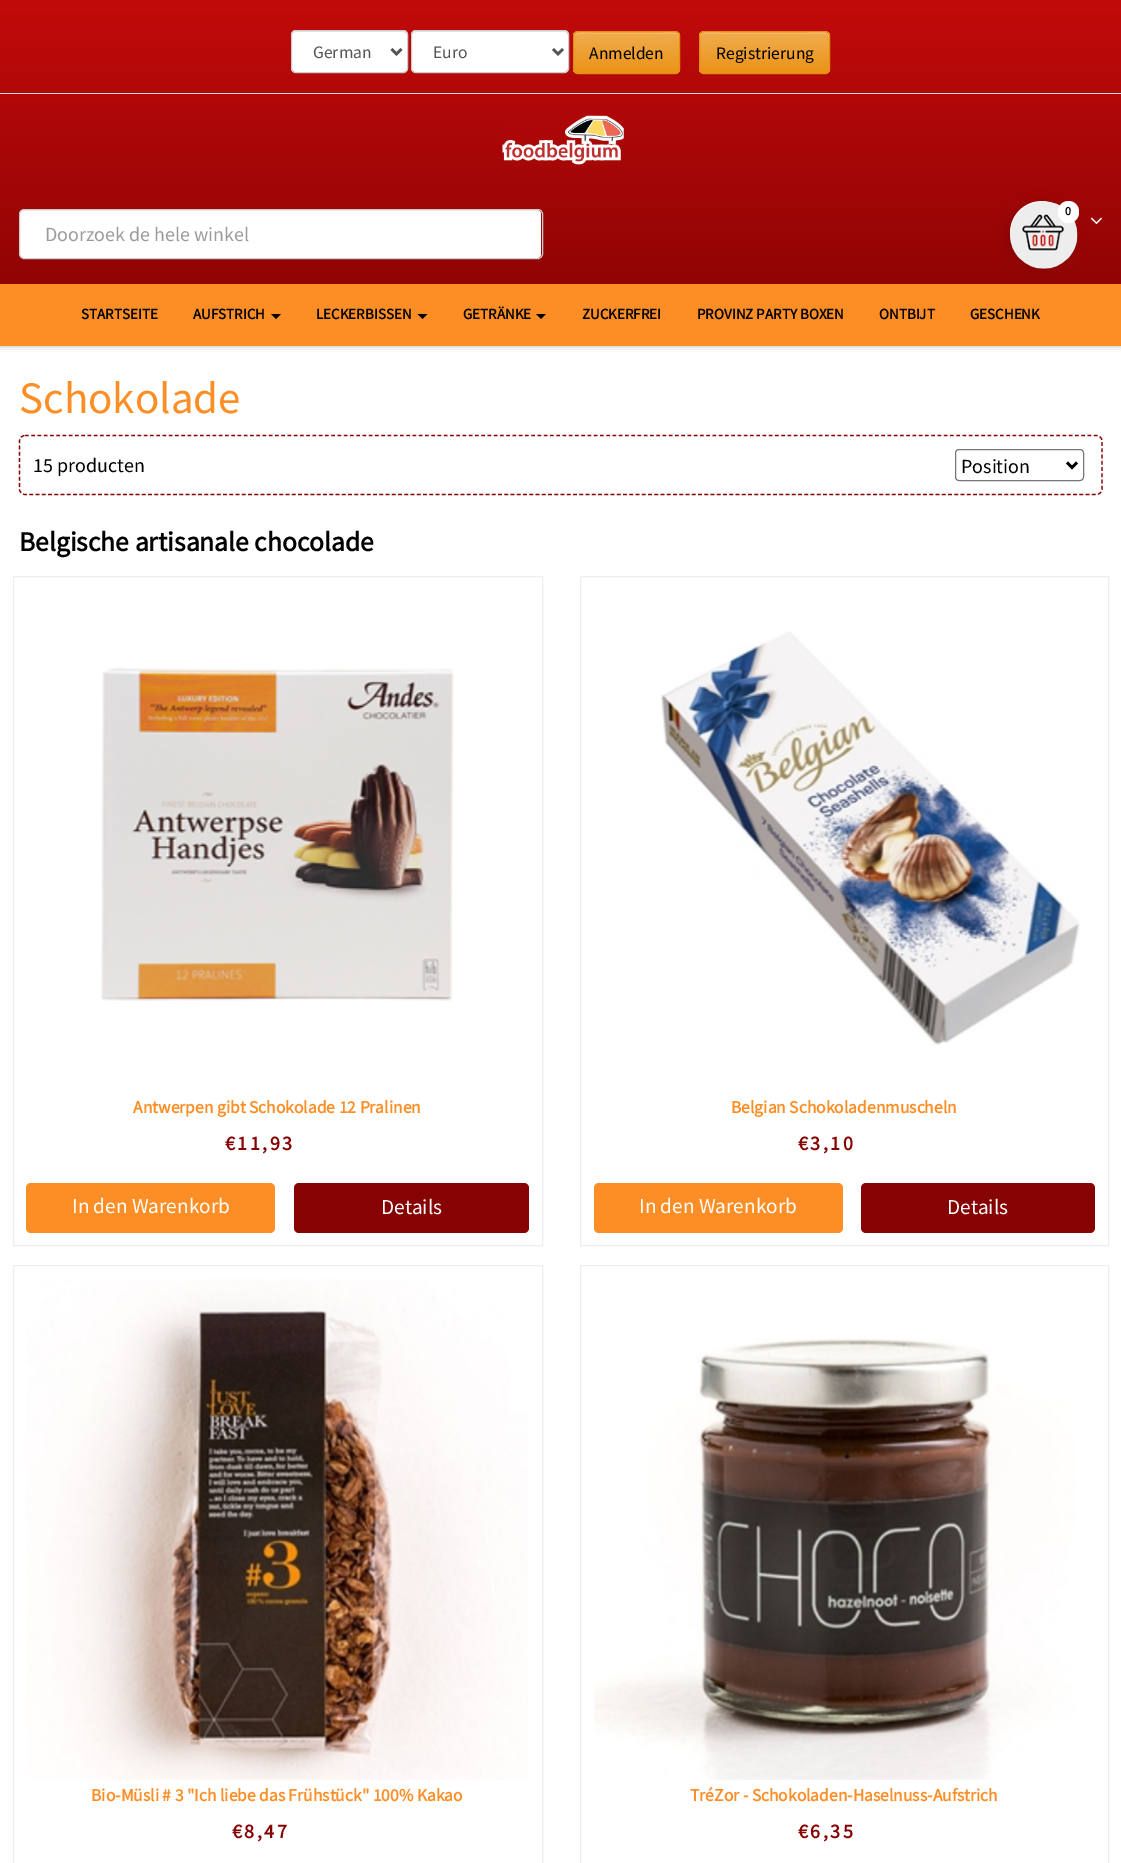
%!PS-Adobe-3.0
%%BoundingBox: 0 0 1121 1863
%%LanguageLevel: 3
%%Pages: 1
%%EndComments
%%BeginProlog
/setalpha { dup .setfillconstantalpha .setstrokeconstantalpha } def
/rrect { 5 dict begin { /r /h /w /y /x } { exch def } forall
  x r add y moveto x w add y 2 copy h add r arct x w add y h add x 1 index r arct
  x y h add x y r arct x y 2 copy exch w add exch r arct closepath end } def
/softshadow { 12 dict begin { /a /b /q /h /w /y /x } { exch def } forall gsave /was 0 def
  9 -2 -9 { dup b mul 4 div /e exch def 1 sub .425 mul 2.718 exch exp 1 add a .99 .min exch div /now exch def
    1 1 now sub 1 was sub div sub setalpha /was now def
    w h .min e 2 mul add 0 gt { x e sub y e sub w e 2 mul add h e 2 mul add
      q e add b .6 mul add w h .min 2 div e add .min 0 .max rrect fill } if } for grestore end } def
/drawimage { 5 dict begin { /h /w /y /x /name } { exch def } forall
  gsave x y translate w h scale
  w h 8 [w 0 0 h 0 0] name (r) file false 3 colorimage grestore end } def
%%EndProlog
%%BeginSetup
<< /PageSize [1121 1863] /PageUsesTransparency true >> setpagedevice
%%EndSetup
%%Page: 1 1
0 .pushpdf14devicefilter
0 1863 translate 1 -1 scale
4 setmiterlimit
1 setgray
0 0 1121 1863 rectfill
0 setgray
0 0 1121 346 0 3 0.3 softshadow
gsave newpath 0 0 moveto 1121 0 lineto 1121 284 lineto 0 284 lineto closepath clip newpath
<< /ShadingType 2 /ColorSpace /DeviceRGB /Coords [561 0 561 346] /Extend [true true] /Function << /FunctionType 2 /Domain [0 1] /C0 [0.761 0.039 0.039] /C1 [0.529 0.012 0.012] /N 1 >> >> shfill grestore
0.847 setgray
0 93 1121 1 rectfill
1 setgray
291 30 117 43 5 rrect fill
0.925 setgray
newpath 296 32 moveto 402 32 lineto 405 32 406 34 406 36 curveto 406 35 lineto 406 33 404 31 402 31 curveto 297 31 lineto 296 31 294 32 294 33 curveto closepath fill
0.8 setgray
291.5 30.5 116 42 4.5 rrect stroke
0.333 setgray
2.5 setlinewidth
newpath 391.5 49 moveto 396.5 54 lineto 401.5 49 lineto stroke
1 setgray
411 30 158 43 5 rrect fill
0.925 setgray
newpath 416 32 moveto 564 32 lineto 566 32 568 34 568 36 curveto 568 35 lineto 568 33 566 31 564 31 curveto 417 31 lineto 416 31 414 32 414 33 curveto closepath fill
0.8 setgray
1 setlinewidth
411.5 30.5 157 42 4.5 rrect stroke
0.333 setgray
2.5 setlinewidth
newpath 553 49 moveto 558 54 lineto 563 49 lineto stroke
0 setgray
573 33 107 42 5 0.5 0.07 softshadow
0.941 0.678 0.306 setrgbcolor
573 31 107 43 5 rrect fill
gsave
573 31 107 43 5 rrect clip newpath
gsave newpath 573 33 moveto 680 33 lineto 680 73 lineto 573 73 lineto closepath clip newpath
<< /ShadingType 2 /ColorSpace /DeviceRGB /Coords [626 32 626 73] /Extend [true true] /Function << /FunctionType 2 /Domain [0 1] /C0 [0.941 0.678 0.306] /C1 [0.922 0.576 0.086] /N 1 >> >> shfill grestore
grestore
0.949 0.725 0.404 setrgbcolor
newpath 578 34 moveto 675 34 lineto 677 34 679 35 679 38 curveto 679 29 663 33 659 33 curveto 594 33 lineto 590 33 574 29 574 38 curveto 574 35 575 34 578 34 curveto closepath fill
0.89 0.553 0.075 setrgbcolor
1 setlinewidth
573.5 31.5 106 42 4.5 rrect stroke
0 setgray
699 33 131 42 5 0.5 0.07 softshadow
0.941 0.678 0.306 setrgbcolor
699 31 131 43 5 rrect fill
gsave
699 31 131 43 5 rrect clip newpath
gsave newpath 699 33 moveto 830 33 lineto 830 73 lineto 699 73 lineto closepath clip newpath
<< /ShadingType 2 /ColorSpace /DeviceRGB /Coords [764 32 764 73] /Extend [true true] /Function << /FunctionType 2 /Domain [0 1] /C0 [0.941 0.678 0.306] /C1 [0.922 0.576 0.086] /N 1 >> >> shfill grestore
grestore
0.949 0.725 0.404 setrgbcolor
newpath 704 34 moveto 825 34 lineto 827 34 829 35 829 38 curveto 829 28 807 33 805 33 curveto 724 33 lineto 722 33 700 28 700 38 curveto 700 35 702 34 704 34 curveto closepath fill
0.89 0.553 0.075 setrgbcolor
699.5 31.5 130 42 4.5 rrect stroke
(images/1.raw) 502 115 122 50 drawimage
(images/3.raw) 1090 217 12 8 drawimage
0.992 0.557 0.145 setrgbcolor
0 284 1121 62 rectfill
0 setgray
1010 204 63 62 31 6 0.2 softshadow
1 setgray
newpath 1041.5 232.5 31.5 0 360 arc closepath fill
(images/2.raw) 1010 201 68 68 drawimage
1058 201 21 22 10.5 rrect fill
20 210 521 48 4 rrect fill
0.07 setalpha
0 setgray
newpath 24 211 moveto 538 211 lineto 540 211 541 213 541 215 curveto 541 214 lineto 541 212 539 210 537 210 curveto 24 210 lineto 22 210 20 212 20 214 curveto 20 215 lineto 20 213 22 211 24 211 curveto closepath fill
1 setalpha
0.8 setgray
19.5 209.5 523 49 4.5 rrect stroke
0 setgray
newpath 271 314 moveto 281 314 lineto 276 319 lineto closepath fill
newpath 417.5 314 moveto 427.5 314 lineto 422.5 319 lineto closepath fill
newpath 536 314 moveto 546 314 lineto 541 319 lineto closepath fill
0.529 0.012 0.012 setrgbcolor
1.2 setlinewidth
[3.75 2.5] 0 setdash
newpath 25 435.5 moveto 1096 435.5 lineto 1099.5 435.5 1102 438 1102 441 curveto 1102 489 lineto 1102 492 1099.5 494.5 1096 494.5 curveto 25 494.5 lineto 22 494.5 19.5 492 19.5 489 curveto 19.5 441 lineto 19.5 438 22 435.5 25 435.5 curveto closepath stroke
0.463 setgray
1 setlinewidth
[] 0 setdash
955.5 449.5 128 31 3.5 rrect stroke
0 setgray
2.5 setlinewidth
newpath 1067 462.5 moveto 1072 467.5 lineto 1077 462.5 lineto stroke
0.933 setgray
1 setlinewidth
13.5 576.5 529 669 rectstroke
(images/4.raw) 101 667 353 334 drawimage
0.992 0.557 0.145 setrgbcolor
26 1183 249 50 5 rrect fill
0.529 0.012 0.012 setrgbcolor
294 1183 235 50 5 rrect fill
0.933 setgray
580.5 576.5 528 669 rectstroke
(images/5.raw) 661 631 419 414 drawimage
0.992 0.557 0.145 setrgbcolor
594 1183 249 50 5 rrect fill
0.529 0.012 0.012 setrgbcolor
861 1183 234 50 5 rrect fill
0.933 setgray
13.5 1265.5 529 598 rectstroke
(images/6.raw) 26 1279 502 501 drawimage
580.5 1265.5 528 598 rectstroke
(images/7.raw) 594 1338 481 442 drawimage
/SourceSansPro-Regular [17.5 0 0 -17.5 0 0] selectfont
0.333 setgray
313 58 moveto (German) show
433 58 moveto (Euro) show
0 setgray
589 59 moveto (Anmelden) show
716 59 moveto (Registrierung) show
/SourceSansPro-Bold [12 0 0 -12 0 0] selectfont
1065 215 moveto (0) show
/SourceSansPro-Regular [20 0 0 -20 0 0] selectfont
0.608 setgray
45 241 moveto (Doorzoek de hele winkel) show
/SourceSansPro-Bold [15 0 0 -15 0 0] selectfont
0 setgray
81 319 moveto (STARTSEITE) show
193 319 moveto (AUFSTRICH) show
316 319 moveto (LECKERBISSEN) show
463 319 moveto (GETRÄNKE) show
582 319 moveto (ZUCKERFREI) show
697 319 moveto (PROVINZ PARTY BOXEN) show
879 319 moveto (ONTBIJT) show
970 319 moveto (GESCHENK) show
/SourceSansPro-Regular [45 0 0 -45 0 0] selectfont
0.992 0.557 0.145 setrgbcolor
19 413 moveto (Schokolade) show
/SourceSansPro-Regular [20 0 0 -20 0 0] selectfont
0 setgray
33 472 moveto (15 producten) show
961 473 moveto (Position) show
/SourceSansPro-Bold [27.5 0 0 -27.5 0 0] selectfont
19 551 moveto (Belgische artisanale chocolade) show
/SourceSansPro-Bold [17.5 0 0 -17.5 0 0] selectfont
0.992 0.557 0.145 setrgbcolor
133 1113 moveto (Antwerpen gibt Schokolade 12 Pralinen) show
/SourceSansPro-Bold [20 0 0 -20 0 0] selectfont
0.529 0.012 0.012 setrgbcolor
225 1150 moveto 2.5 0 (€11,93) ashow
/SourceSansPro-Regular [21.25 0 0 -21.25 0 0] selectfont
1 setgray
72 1213 moveto (In den Warenkorb) show
381 1214 moveto (Details) show
/SourceSansPro-Bold [17.5 0 0 -17.5 0 0] selectfont
0.992 0.557 0.145 setrgbcolor
731 1113 moveto (Belgian Schokoladenmuscheln) show
/SourceSansPro-Bold [20 0 0 -20 0 0] selectfont
0.529 0.012 0.012 setrgbcolor
798 1150 moveto 2.5 0 (€3,10) ashow
/SourceSansPro-Regular [21.25 0 0 -21.25 0 0] selectfont
1 setgray
639 1213 moveto (In den Warenkorb) show
947 1214 moveto (Details) show
/SourceSansPro-Bold [17.5 0 0 -17.5 0 0] selectfont
0.992 0.557 0.145 setrgbcolor
91 1801 moveto (Bio-Müsli # 3 "Ich liebe das Frühstück" 100% Kakao) show
/SourceSansPro-Bold [20 0 0 -20 0 0] selectfont
0.529 0.012 0.012 setrgbcolor
232 1838 moveto 2.5 0 (€8,47) ashow
/SourceSansPro-Bold [17.5 0 0 -17.5 0 0] selectfont
0.992 0.557 0.145 setrgbcolor
690 1801 moveto (TréZor - Schokoladen-Haselnuss-Aufstrich) show
/SourceSansPro-Bold [20 0 0 -20 0 0] selectfont
0.529 0.012 0.012 setrgbcolor
798 1838 moveto 2.5 0 (€6,35) ashow
.poppdf14devicefilter showpage
%%EOF
